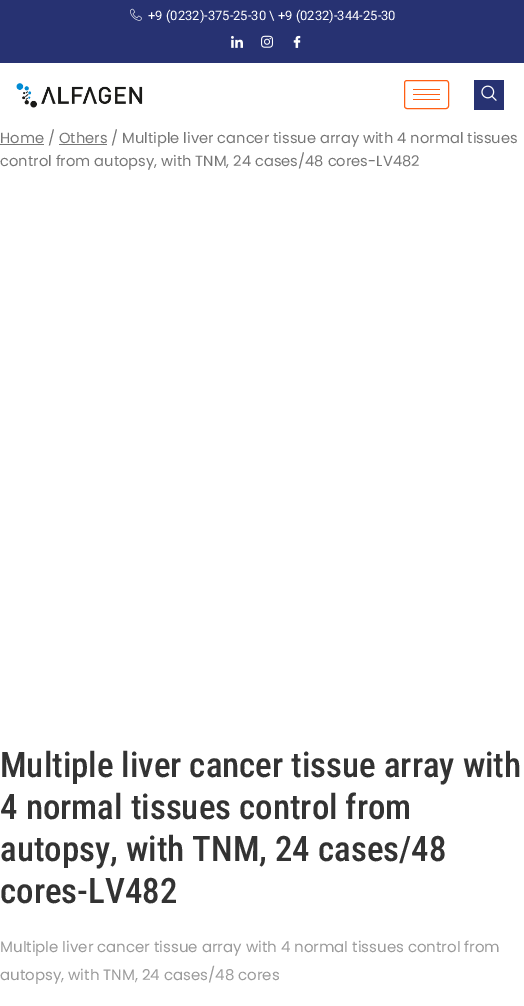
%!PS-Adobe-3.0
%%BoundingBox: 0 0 524 1006
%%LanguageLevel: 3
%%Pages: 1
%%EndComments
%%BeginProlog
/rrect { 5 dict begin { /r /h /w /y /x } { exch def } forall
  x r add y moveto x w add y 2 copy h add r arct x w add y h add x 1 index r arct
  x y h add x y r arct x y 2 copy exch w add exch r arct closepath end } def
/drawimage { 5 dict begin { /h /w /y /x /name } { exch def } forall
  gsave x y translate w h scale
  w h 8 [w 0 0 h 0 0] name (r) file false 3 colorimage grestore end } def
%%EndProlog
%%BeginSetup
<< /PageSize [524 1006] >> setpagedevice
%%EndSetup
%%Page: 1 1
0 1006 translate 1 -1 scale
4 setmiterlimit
1 setgray
0 0 524 1006 rectfill
0.153 0.196 0.447 setrgbcolor
0 0 524 63 rectfill
(images/1.raw) 130 8 12 13 drawimage
(images/2.raw) 231 35 12 13 drawimage
(images/3.raw) 261 35 13 13 drawimage
(images/4.raw) 293 35 8 13 drawimage
(images/5.raw) 16 83 127 25 drawimage
1 0.369 0.075 setrgbcolor
404.5 80.5 44 28 2.5 rrect stroke
413 89 27 1 rectfill
413 94 27 1 rectfill
413 99 27 1 rectfill
0.153 0.196 0.447 setrgbcolor
474 80 30 30 rectfill
(images/6.raw) 481 85 16 16 drawimage
0.463 setgray
0 144 44 1 rectfill
59 144 48 1 rectfill
/Roboto-Regular [13 0 0 -13 0 0] selectfont
1 setgray
148 20 moveto (+9 \(0232\)-375-25-30 \\ +9 \(0232\)-344-25-30) show
/Poppins-Regular [14.7 0 0 -14.7 0 0] selectfont
0.463 setgray
0 143 moveto (Home / Others / Multiple liver cancer tissue array with 4 normal tissues) show
0 166 moveto (control from autopsy, with TNM, 24 cases/48 cores-LV482) show
/RobotoCondensed-Medium [35 0 0 -35 0 0] selectfont
0.2 setgray
0 777 moveto (Multiple liver cancer tissue array with) show
0 819 moveto (4 normal tissues control from) show
0 861 moveto (autopsy, with TNM, 24 cases/48) show
0 903 moveto (cores-LV482) show
/Poppins-Regular [15 0 0 -15 0 0] selectfont
0.608 setgray
0 952 moveto (Multiple liver cancer tissue array with 4 normal tissues control from) show
0 980 moveto (autopsy, with TNM, 24 cases/48 cores) show
showpage
%%EOF
